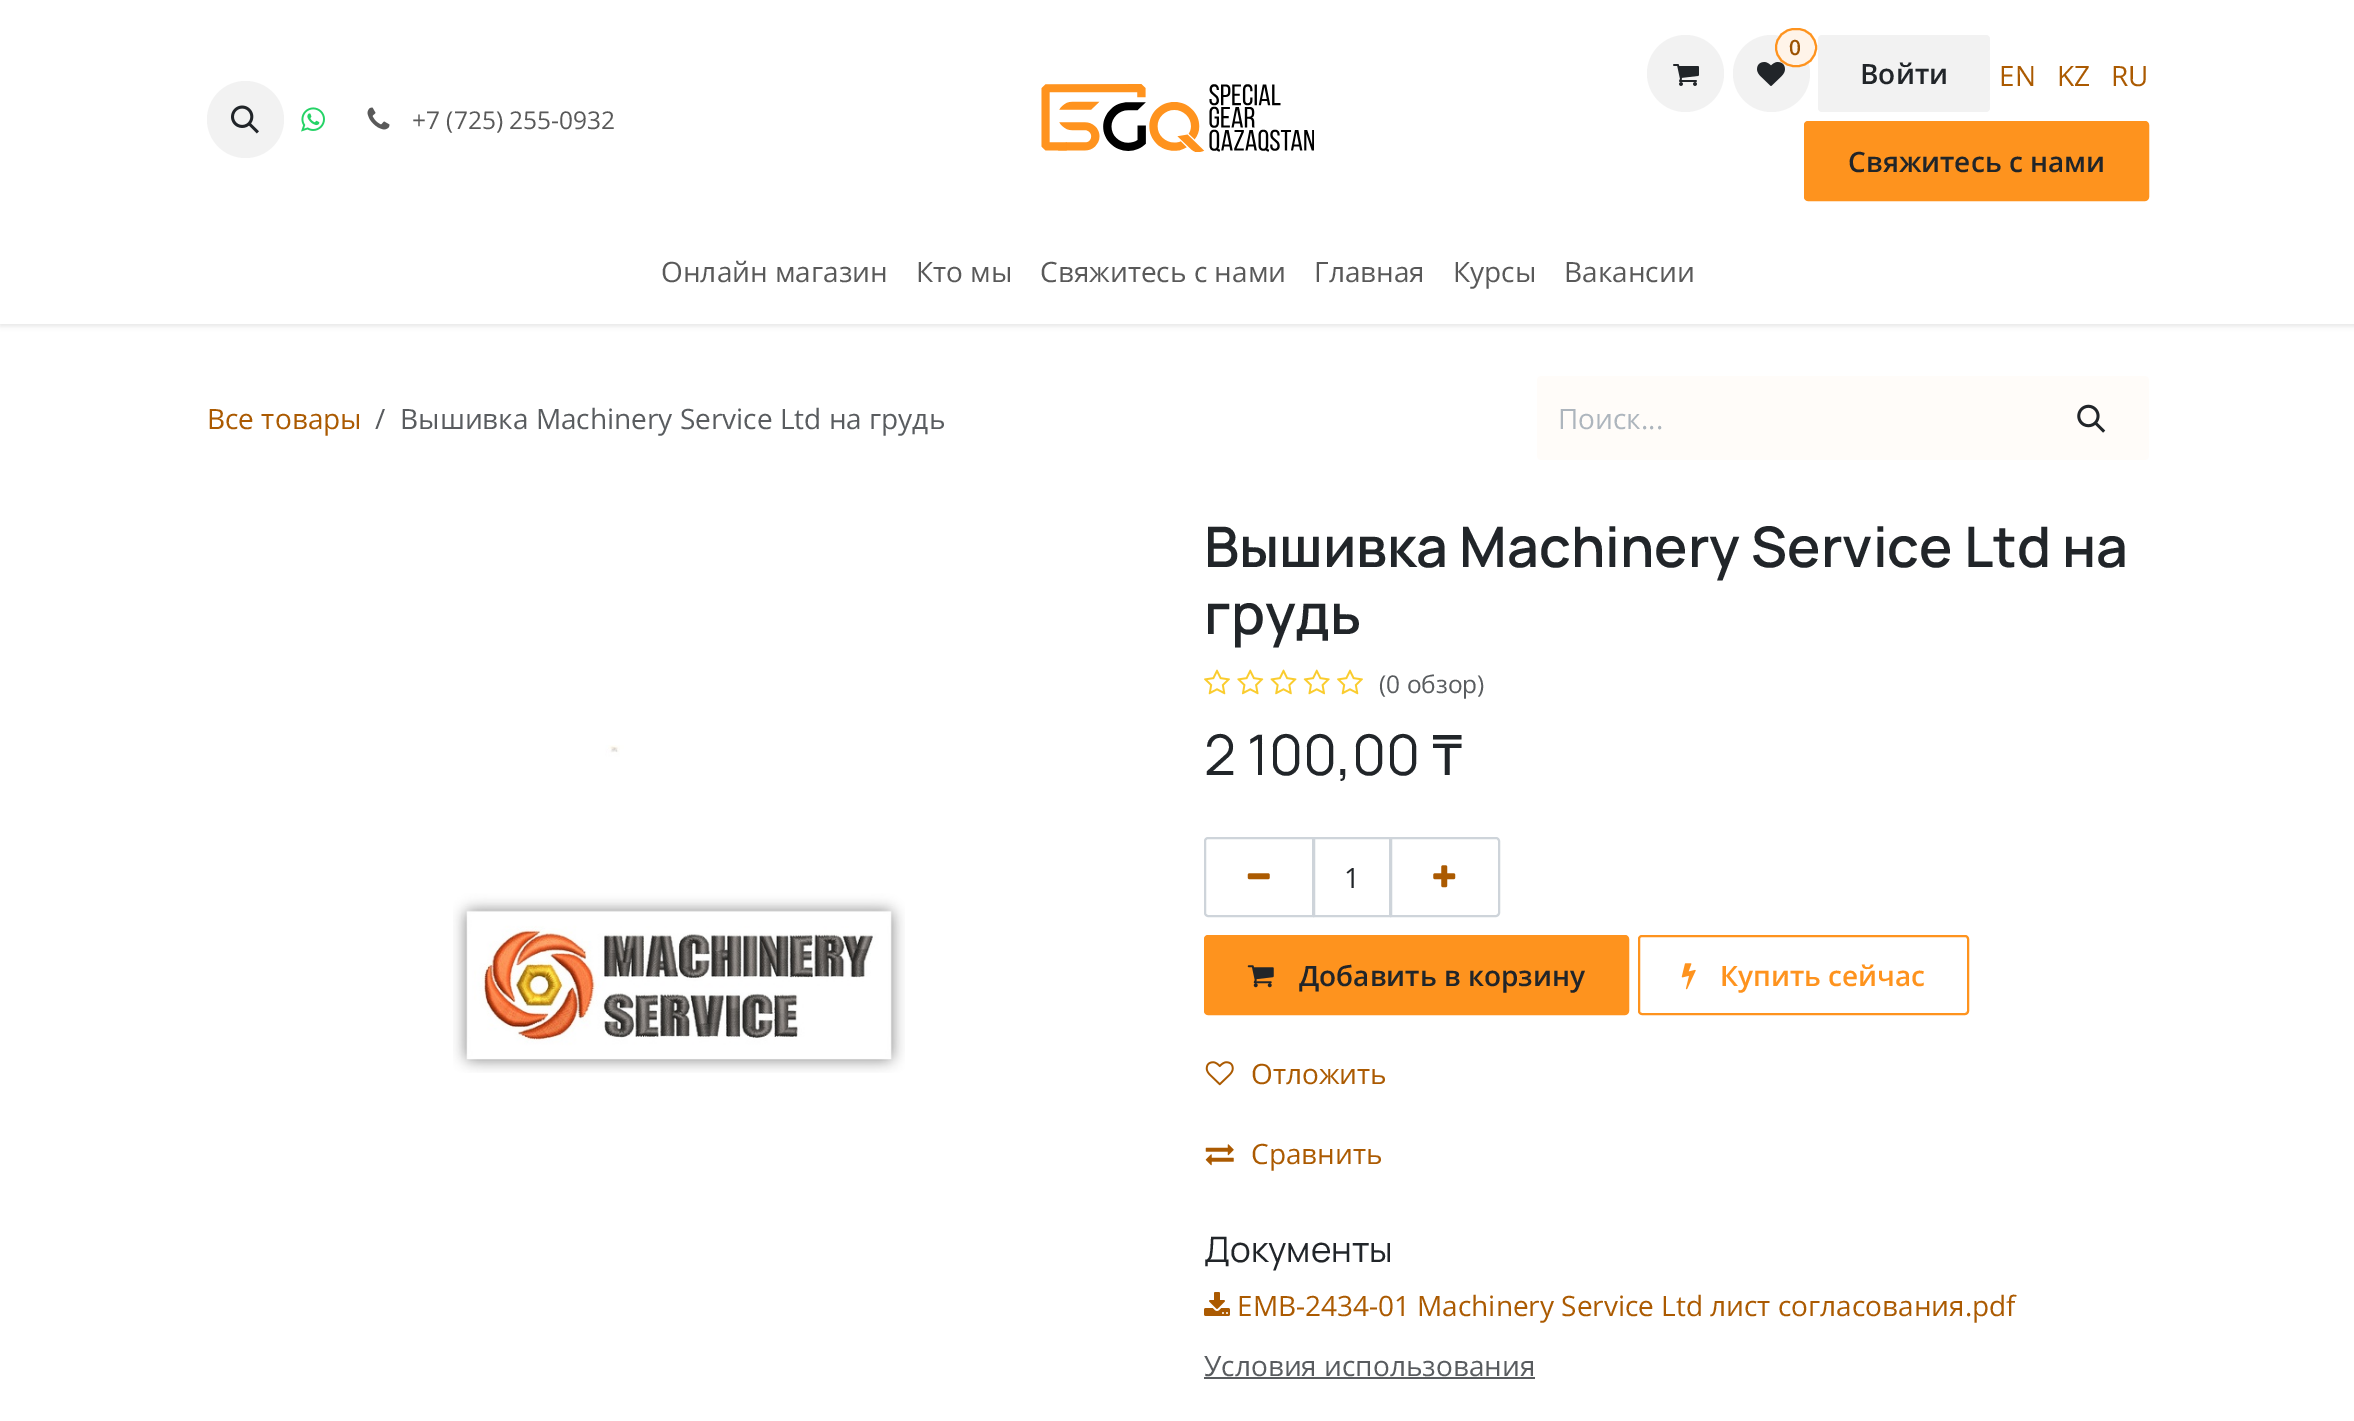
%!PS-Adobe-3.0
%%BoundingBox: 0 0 2354 1421
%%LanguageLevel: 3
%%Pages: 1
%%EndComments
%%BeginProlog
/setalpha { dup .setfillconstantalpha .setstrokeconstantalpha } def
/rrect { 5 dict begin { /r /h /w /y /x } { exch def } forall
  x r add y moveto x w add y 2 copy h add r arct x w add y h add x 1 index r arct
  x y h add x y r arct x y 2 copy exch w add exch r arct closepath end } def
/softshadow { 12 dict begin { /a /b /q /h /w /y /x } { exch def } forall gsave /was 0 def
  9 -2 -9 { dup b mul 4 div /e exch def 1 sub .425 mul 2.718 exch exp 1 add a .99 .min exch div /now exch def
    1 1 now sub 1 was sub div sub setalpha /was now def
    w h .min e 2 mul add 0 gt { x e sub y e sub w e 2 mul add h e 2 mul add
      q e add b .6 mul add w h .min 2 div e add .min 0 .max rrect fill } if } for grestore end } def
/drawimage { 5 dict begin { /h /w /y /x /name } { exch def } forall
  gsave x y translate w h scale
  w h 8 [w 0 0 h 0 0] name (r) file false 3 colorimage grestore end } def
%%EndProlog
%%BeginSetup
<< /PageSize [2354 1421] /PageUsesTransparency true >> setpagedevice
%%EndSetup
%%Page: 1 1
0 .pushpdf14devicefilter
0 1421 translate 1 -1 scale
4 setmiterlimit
1 setgray
0 0 2354 1421 rectfill
0 setgray
0 2 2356 324 0 2.5 0.1 softshadow
1 setgray
0 0 2354 324 rectfill
0.949 setgray
newpath 245.5 119.5 38.5 0 360 arc closepath fill
(images/1.raw) 231 105 28 29 drawimage
(images/2.raw) 301 107 24 25 drawimage
(images/3.raw) 367 107 23 23 drawimage
(images/4.raw) 1041 84 273 68 drawimage
newpath 1685.5 73.5 38.5 0 360 arc closepath fill
(images/5.raw) 1673 64 26 22 drawimage
newpath 1771.5 73.5 38.5 0 360 arc closepath fill
(images/6.raw) 1757 62 28 24 drawimage
1 0.957 0.914 setrgbcolor
1776 29 40 37 18.5 rrect gsave fill grestore
0.996 0.576 0.118 setrgbcolor
2 setlinewidth
stroke
0.949 setgray
1818 35 172 77 4 rrect fill
0.996 0.576 0.118 setrgbcolor
1805 122 343 78 3 rrect gsave fill grestore
stroke
1 0.988 0.976 setrgbcolor
newpath 1541 376 moveto 2035 376 lineto 2035 460 lineto 1541 460 lineto 1539 460 1537 458 1537 456 curveto 1537 380 lineto 1537 378 1539 376 1541 376 curveto closepath fill
newpath 2034 376 moveto 2145 376 lineto 2147 376 2149 378 2149 380 curveto 2149 456 lineto 2149 458 2147 460 2145 460 curveto 2034 460 lineto closepath fill
(images/7.raw) 2077 404 29 29 drawimage
(images/8.raw) 453 745 452 328 drawimage
(images/9.raw) 1204 669 26 26 drawimage
(images/10.raw) 1237 669 27 26 drawimage
(images/11.raw) 1270 669 27 26 drawimage
(images/12.raw) 1303 669 27 26 drawimage
(images/9.raw) 1337 669 26 26 drawimage
0.808 0.831 0.855 setrgbcolor
1314 838 76 78 rectstroke
newpath 1208 838 moveto 1313 838 lineto 1313 916 lineto 1208 916 lineto 1206.5 916 1205 914.5 1205 913 curveto 1205 841 lineto 1205 839.5 1206.5 838 1208 838 curveto closepath stroke
(images/13.raw) 1247 873 23 7 drawimage
newpath 1391 838 moveto 1496 838 lineto 1497.5 838 1499 839.5 1499 841 curveto 1499 913 lineto 1499 914.5 1497.5 916 1496 916 curveto 1391 916 lineto closepath stroke
(images/14.raw) 1433 865 23 23 drawimage
0.996 0.576 0.118 setrgbcolor
1205 936 423 78 3 rrect gsave fill grestore
stroke
(images/15.raw) 1247 965 27 23 drawimage
1639 936 329 78 3 rrect stroke
(images/16.raw) 1681 963 15 27 drawimage
(images/17.raw) 1205 1061 29 25 drawimage
(images/18.raw) 1205 1144 29 22 drawimage
(images/19.raw) 1204 1292 26 24 drawimage
0.349 0.361 0.373 setrgbcolor
1204 1377 331 2 rectfill
/OpenSans-Regular [24.5 0 0 -24.5 0 0] selectfont
0.349 setgray
412 129 moveto (+7 \(725\) 255-0932) show
/OpenSans-SemiBold [21 0 0 -21 0 0] selectfont
0.612 0.322 0.004 setrgbcolor
1789 55 moveto (0) show
/OpenSans-SemiBold [28 0 0 -28 0 0] selectfont
0.129 0.145 0.161 setrgbcolor
1860 84 moveto (Войти) show
/OpenSans-Regular [28 0 0 -28 0 0] selectfont
0.671 0.353 0.004 setrgbcolor
1999 86 moveto (EN) show
2057 86 moveto (KZ) show
2111 86 moveto (RU) show
/OpenSans-SemiBold [28 0 0 -28 0 0] selectfont
0.129 0.145 0.161 setrgbcolor
1848 172 moveto (Свяжитесь с нами) show
/OpenSans-Regular [28 0 0 -28 0 0] selectfont
0.349 setgray
661 282 moveto (Онлайн магазин) show
916 282 moveto (Кто мы) show
1040 282 moveto (Свяжитесь с нами) show
1314 282 moveto (Главная) show
1453 282 moveto (Курсы) show
1564 282 moveto (Вакансии) show
0.671 0.353 0.004 setrgbcolor
207 429 moveto (Все товары) show
0.349 0.361 0.373 setrgbcolor
375 429 moveto (/) show
400 429 moveto (Вышивка Machinery Service Ltd на грудь) show
0.678 0.71 0.741 setrgbcolor
1558 429 moveto (Поиск...) show
/Manrope-SemiBold [56 0 0 -56 0 0] selectfont
0.129 0.145 0.161 setrgbcolor
1204 567 moveto (Вышивка Machinery Service Ltd на) show
1204 634 moveto (грудь) show
/OpenSans-Regular [24.5 0 0 -24.5 0 0] selectfont
0.349 0.361 0.373 setrgbcolor
1379 693 moveto (\(0 обзор\)) show
/Manrope-Regular [56 0 0 -56 0 0] selectfont
0.129 0.145 0.161 setrgbcolor
1204 775 moveto (2 100,00) show
/NotoSans-Regular [56 0 0 -56 0 0] selectfont
1432 775 moveto (₸) show
/OpenSans-Regular [28 0 0 -28 0 0] selectfont
1344 888 moveto (1) show
/OpenSans-SemiBold [28 0 0 -28 0 0] selectfont
1299 986 moveto (Добавить в корзину) show
0.996 0.576 0.118 setrgbcolor
1720 986 moveto (Купить сейчас) show
/OpenSans-Regular [28 0 0 -28 0 0] selectfont
0.671 0.353 0.004 setrgbcolor
1251 1084 moveto (Отложить) show
1251 1164 moveto (Сравнить) show
/Manrope-Regular [35 0 0 -35 0 0] selectfont
0.129 0.145 0.161 setrgbcolor
1204 1262 moveto (Документы) show
/OpenSans-Regular [28 0 0 -28 0 0] selectfont
0.671 0.353 0.004 setrgbcolor
1237 1316 moveto (EMB-2434-01 Machinery Service Ltd лист согласования.pdf) show
0.349 0.361 0.373 setrgbcolor
1204 1376 moveto (Условия использования) show
.poppdf14devicefilter showpage
%%EOF
